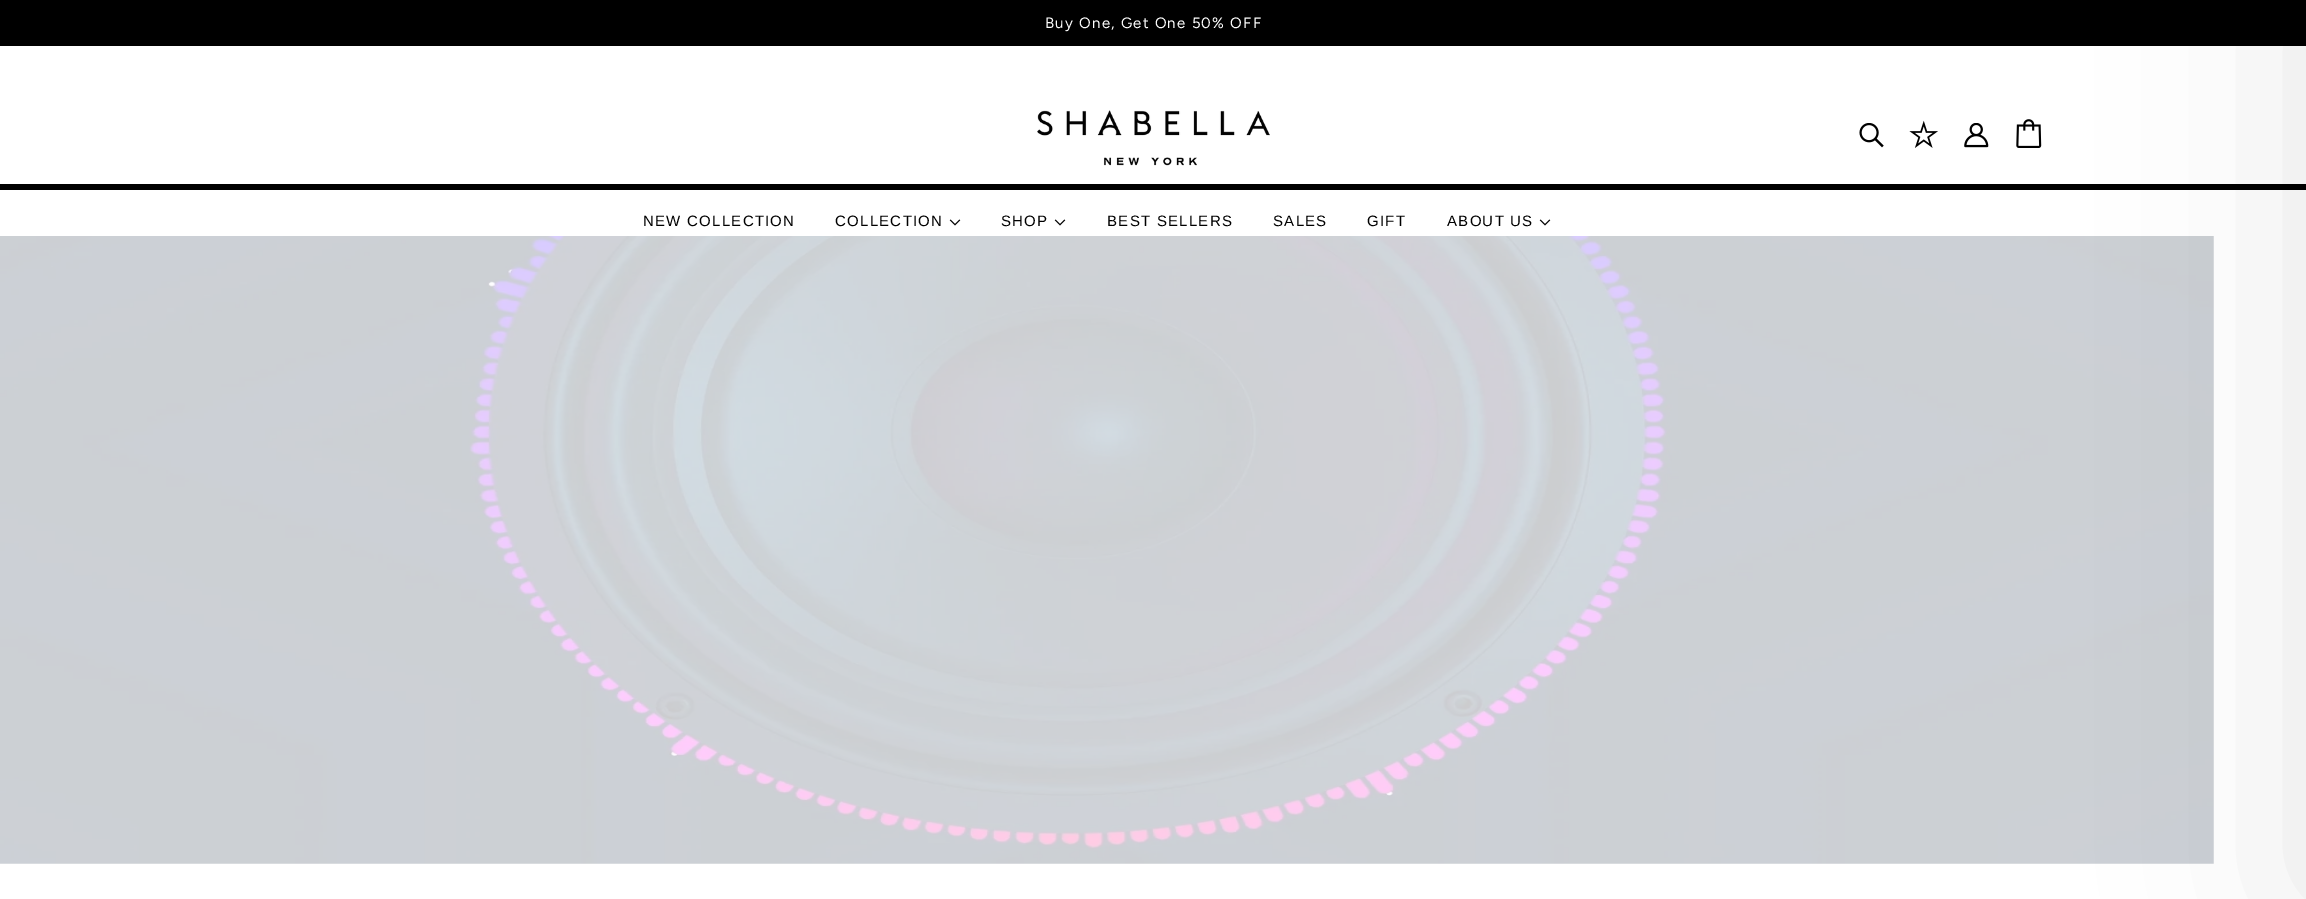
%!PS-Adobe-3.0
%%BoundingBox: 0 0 2306 899
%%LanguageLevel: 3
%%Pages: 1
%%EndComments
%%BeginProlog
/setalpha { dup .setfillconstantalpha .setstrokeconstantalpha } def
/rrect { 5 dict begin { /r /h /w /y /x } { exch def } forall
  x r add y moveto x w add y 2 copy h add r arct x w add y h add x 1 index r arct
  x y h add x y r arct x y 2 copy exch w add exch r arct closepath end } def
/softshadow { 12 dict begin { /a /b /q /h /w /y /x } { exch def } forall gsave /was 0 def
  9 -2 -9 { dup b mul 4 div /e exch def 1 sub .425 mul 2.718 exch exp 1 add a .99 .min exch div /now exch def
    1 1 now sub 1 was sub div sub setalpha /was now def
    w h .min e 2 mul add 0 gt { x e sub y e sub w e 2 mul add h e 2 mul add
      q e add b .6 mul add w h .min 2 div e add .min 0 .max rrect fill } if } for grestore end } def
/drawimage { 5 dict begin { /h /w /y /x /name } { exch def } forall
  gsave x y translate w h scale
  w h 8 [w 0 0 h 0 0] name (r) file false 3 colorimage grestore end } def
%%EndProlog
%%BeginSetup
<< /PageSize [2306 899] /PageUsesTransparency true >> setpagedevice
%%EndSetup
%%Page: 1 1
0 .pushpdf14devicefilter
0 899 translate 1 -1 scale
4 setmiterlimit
1 setgray
0 0 2306 899 rectfill
0 setgray
0 0 2306 46 rectfill
(images/1.raw) 1037 110 233 56 drawimage
0 184 2306 6 rectfill
(images/2.raw) 1859 123 25 25 drawimage
(images/3.raw) 1909 120 29 28 drawimage
(images/4.raw) 1964 123 25 25 drawimage
(images/5.raw) 2016 119 26 29 drawimage
(images/6.raw) 949 219 12 7 drawimage
(images/6.raw) 1054 219 12 7 drawimage
(images/6.raw) 1539 219 12 7 drawimage
(images/7.raw) 0 236 2214 628 drawimage
2306 0 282 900 0 94 0.1 softshadow
/Figtree-Regular [15 0 0 -15 0 0] selectfont
1 setgray
1045 28 moveto 1.25 0 (Buy One, Get One 50% OFF) ashow
/LiberationSans-Regular [15 0 0 -15 0 0] selectfont
0 setgray
643 226 moveto 1.25 0 (NEW COLLECTION) ashow
835 226 moveto 1.25 0 (COLLECTION) ashow
1001 226 moveto 1.25 0 (SHOP) ashow
1107 226 moveto 1.25 0 (BEST SELLERS) ashow
1273 226 moveto 1.25 0 (SALES) ashow
1367 226 moveto 1.25 0 (GIFT) ashow
1447 226 moveto 1.25 0 (ABOUT US) ashow
.poppdf14devicefilter showpage
%%EOF
